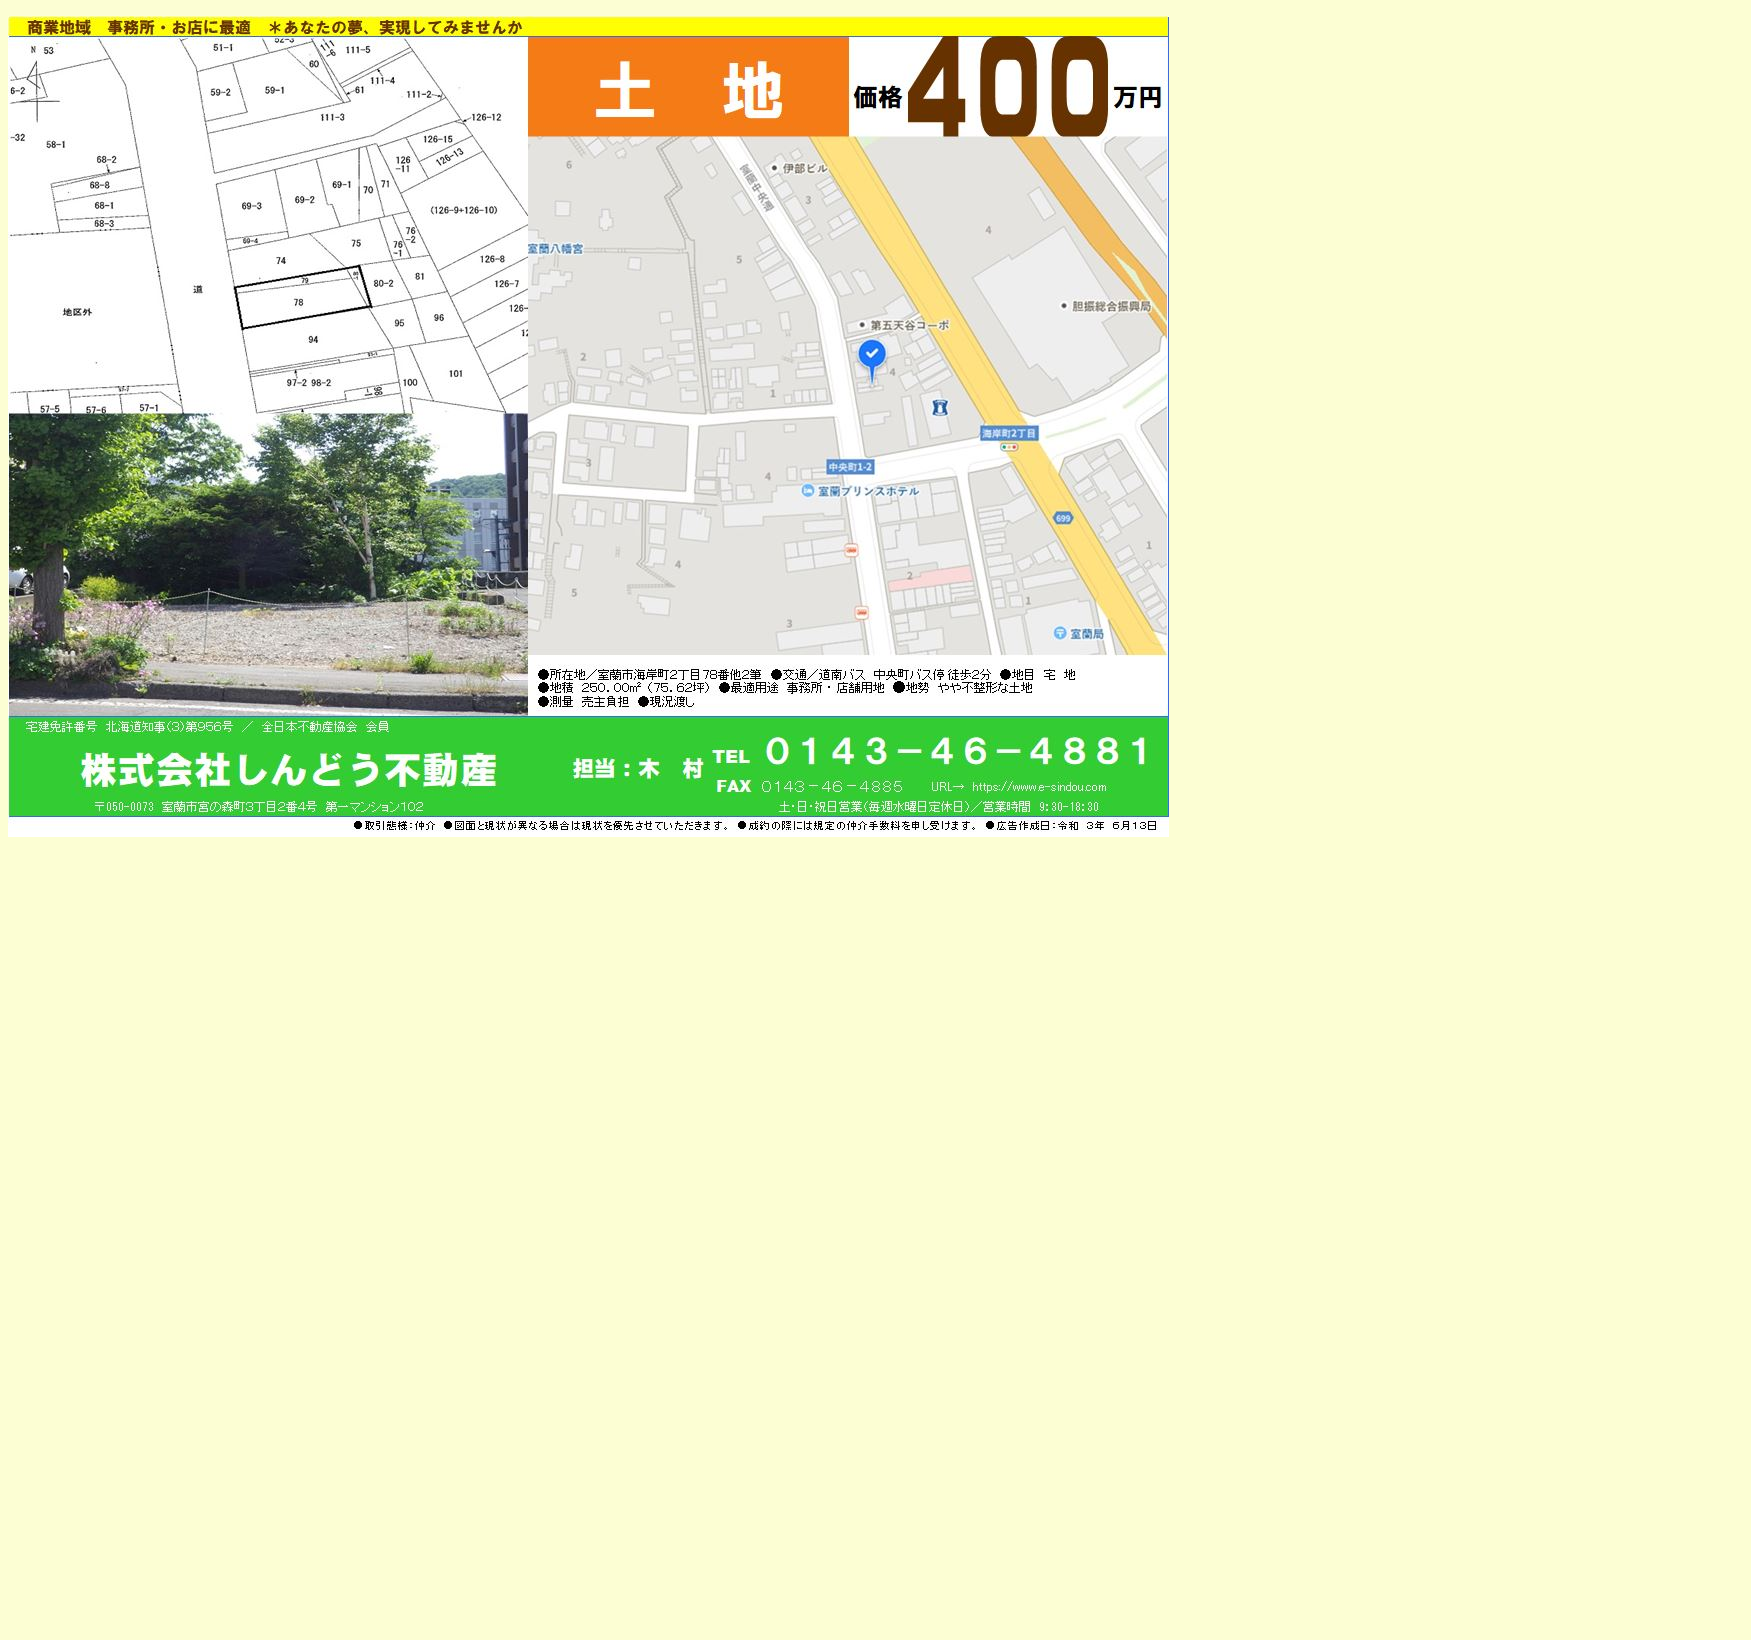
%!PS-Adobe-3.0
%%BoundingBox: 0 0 1751 1640
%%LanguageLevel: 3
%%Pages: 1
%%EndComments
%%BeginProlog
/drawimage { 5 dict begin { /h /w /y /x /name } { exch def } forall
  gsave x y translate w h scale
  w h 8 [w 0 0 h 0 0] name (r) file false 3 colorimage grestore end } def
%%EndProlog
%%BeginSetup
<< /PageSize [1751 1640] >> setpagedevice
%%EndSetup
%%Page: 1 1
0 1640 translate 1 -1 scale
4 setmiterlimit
0.988 0.996 0.827 setrgbcolor
0 0 1751 1640 rectfill
(images/1.raw) 8 16 1161 821 drawimage
showpage
%%EOF
